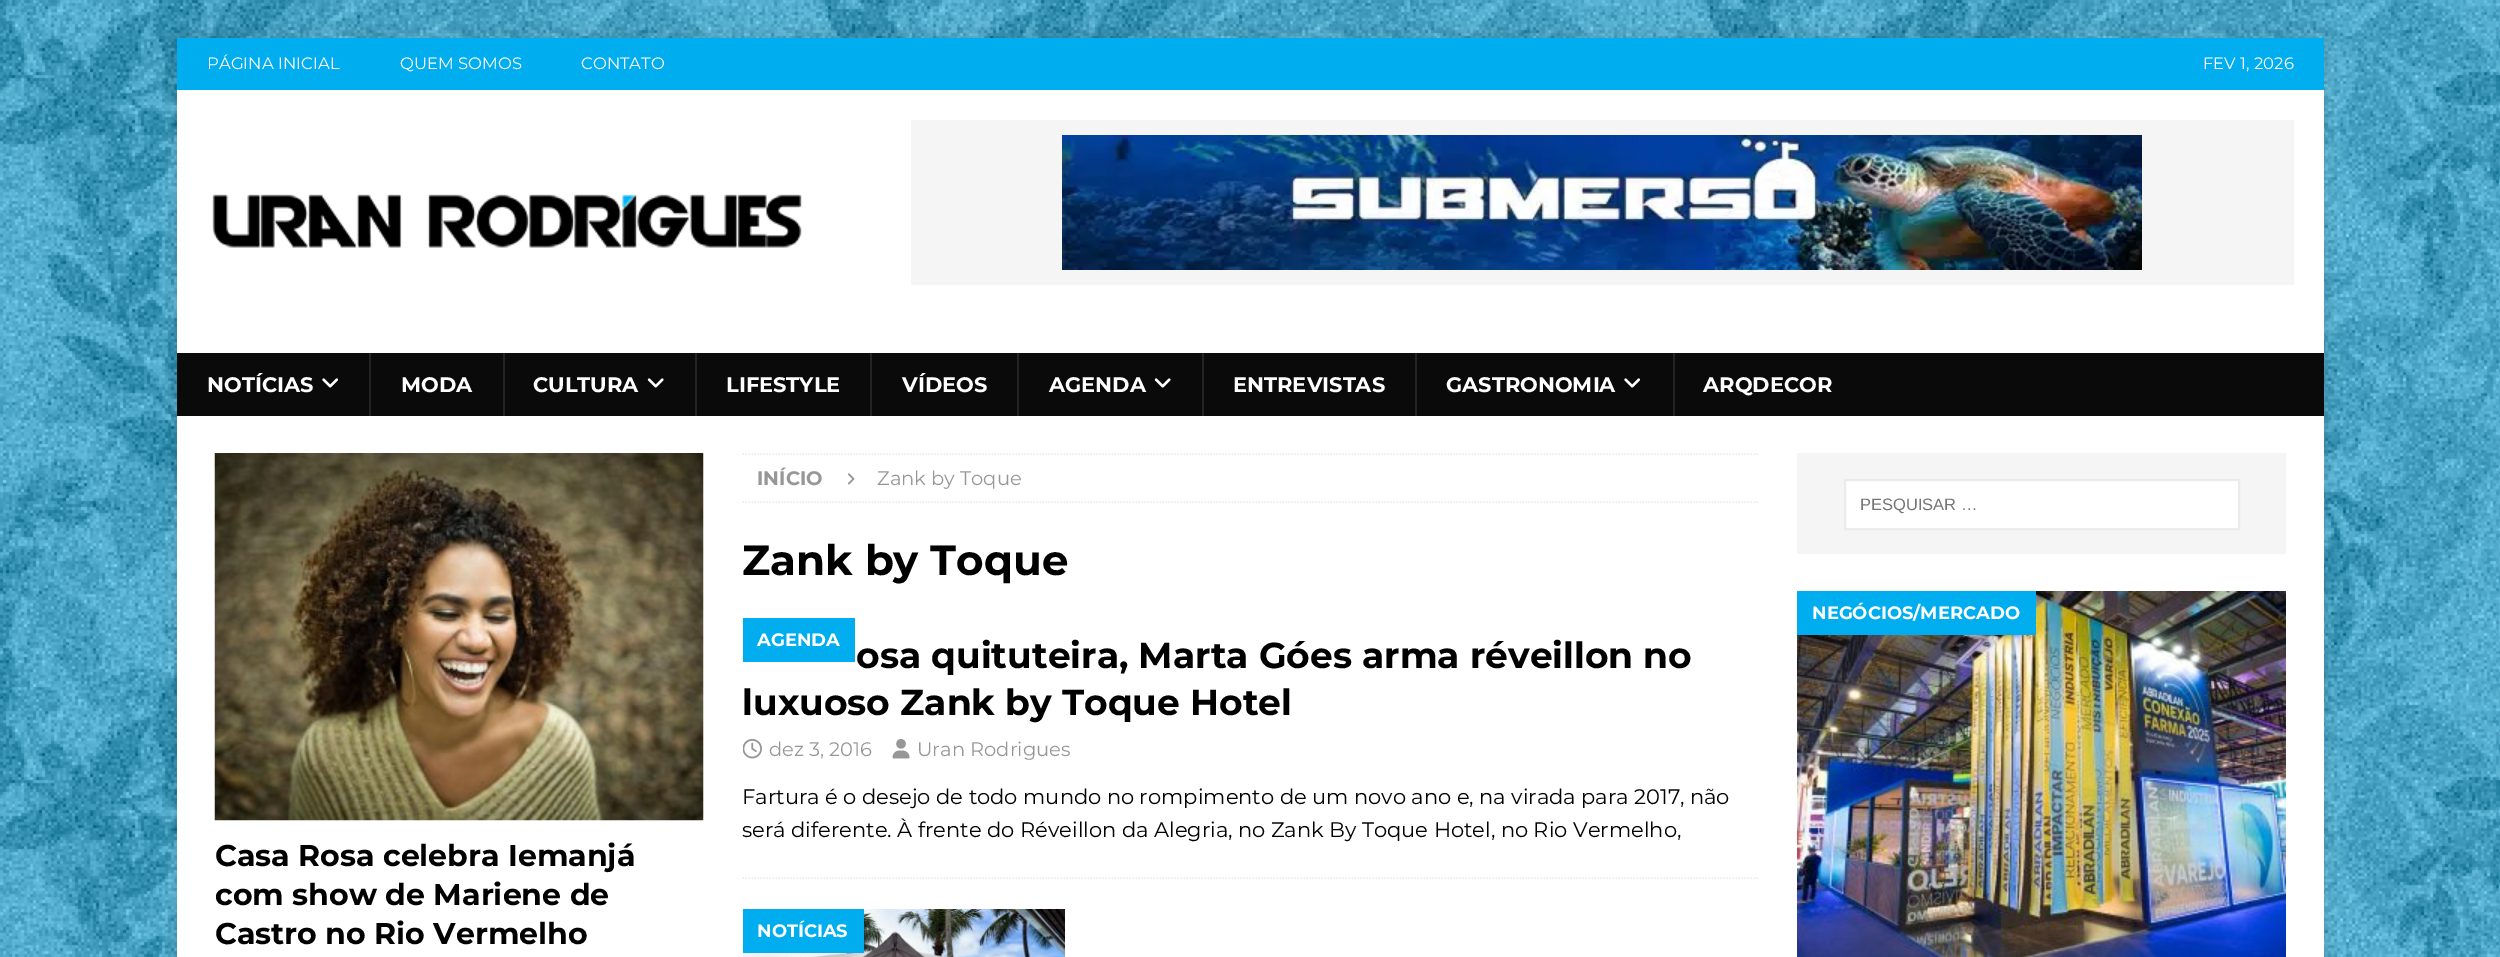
%!PS-Adobe-3.0
%%BoundingBox: 0 0 2500 957
%%LanguageLevel: 3
%%Pages: 1
%%EndComments
%%BeginProlog
/setalpha { dup .setfillconstantalpha .setstrokeconstantalpha } def
/rrect { 5 dict begin { /r /h /w /y /x } { exch def } forall
  x r add y moveto x w add y 2 copy h add r arct x w add y h add x 1 index r arct
  x y h add x y r arct x y 2 copy exch w add exch r arct closepath end } def
/softshadow { 12 dict begin { /a /b /q /h /w /y /x } { exch def } forall gsave /was 0 def
  9 -2 -9 { dup b mul 4 div /e exch def 1 sub .425 mul 2.718 exch exp 1 add a .99 .min exch div /now exch def
    1 1 now sub 1 was sub div sub setalpha /was now def
    w h .min e 2 mul add 0 gt { x e sub y e sub w e 2 mul add h e 2 mul add
      q e add b .6 mul add w h .min 2 div e add .min 0 .max rrect fill } if } for grestore end } def
/drawimage { 5 dict begin { /h /w /y /x /name } { exch def } forall
  gsave x y translate w h scale
  w h 8 [w 0 0 h 0 0] name (r) file false 3 colorimage grestore end } def
%%EndProlog
%%BeginSetup
<< /PageSize [2500 957] /PageUsesTransparency true >> setpagedevice
%%EndSetup
%%Page: 1 1
0 .pushpdf14devicefilter
0 957 translate 1 -1 scale
4 setmiterlimit
1 setgray
0 0 2500 957 rectfill
(images/1.raw) 0 0 2500 957 drawimage
0.196 setgray
177 38 2147 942 0 7.5 0.17 softshadow
0 0.682 0.941 setrgbcolor
177 38 2147 52 rectfill
1 setgray
177 90 2147 263 rectfill
(images/2.raw) 212 194 590 54 drawimage
0.961 setgray
911 120 1383 165 rectfill
(images/3.raw) 1062 135 1080 135 drawimage
0.039 setgray
177 353 2147 63 rectfill
(images/4.raw) 322 378 16 10 drawimage
0.137 setgray
369 353 2 63 rectfill
503 353 2 63 rectfill
(images/5.raw) 647 378 17 10 drawimage
695 353 2 63 rectfill
870 353 2 63 rectfill
1017 353 2 63 rectfill
(images/5.raw) 1154 378 17 10 drawimage
1202 353 2 63 rectfill
1415 353 2 63 rectfill
(images/4.raw) 1624 378 16 10 drawimage
1673 353 2 63 rectfill
1 setgray
177 416 2147 541 rectfill
(images/6.raw) 214 453 490 368 drawimage
0.922 setgray
1.5 setlinewidth
[1.5 1.5] 0 setdash
newpath 742.5 454 moveto 1759.5 454 lineto stroke
newpath 742.5 502 moveto 1759.5 502 lineto stroke
(images/7.raw) 847 473 8 12 drawimage
newpath 742.5 878 moveto 1759.5 878 lineto stroke
0 0.682 0.941 setrgbcolor
743 618 112 44 rectfill
(images/8.raw) 743 738 19 21 drawimage
(images/9.raw) 892 739 18 20 drawimage
(images/10.raw) 743 909 322 48 drawimage
743 909 121 44 rectfill
0.961 setgray
1797 453 489 101 rectfill
1 setgray
newpath 1845 480 moveto 2239 480 lineto 2239 529 lineto 1845 529 lineto closepath gsave fill grestore
0.922 setgray
2 setlinewidth
[] 0 setdash
stroke
(images/11.raw) 1797 591 489 366 drawimage
0 0.682 0.941 setrgbcolor
1797 591 239 44 rectfill
/Montserrat-Regular [16.5 0 0 -16.5 0 0] selectfont
1 setgray
207 69 moveto (PÁGINA INICIAL) show
400 69 moveto (QUEM SOMOS) show
581 69 moveto (CONTATO) show
2203 69 moveto (FEV 1, 2026) show
/Montserrat-Bold [21 0 0 -21 0 0] selectfont
207 392 moveto (NOTÍCIAS) show
401 392 moveto (MODA) show
533 392 moveto (CULTURA) show
726 392 moveto (LIFESTYLE) show
902 392 moveto (VÍDEOS) show
1049 392 moveto (AGENDA) show
1233 392 moveto (ENTREVISTAS) show
1446 392 moveto (GASTRONOMIA) show
1703 392 moveto (ARQDECOR) show
/Montserrat-Bold [30 0 0 -30 0 0] selectfont
0 setgray
215 866 moveto (Casa Rosa celebra Iemanjá) show
215 905 moveto (com show de Mariene de) show
215 944 moveto (Castro no Rio Vermelho) show
/Montserrat-Bold [19.5 0 0 -19.5 0 0] selectfont
0.592 setgray
757 485 moveto (INÍCIO) show
/Montserrat-Regular [19.5 0 0 -19.5 0 0] selectfont
877 485 moveto (Zank by Toque) show
/Montserrat-Bold [42 0 0 -42 0 0] selectfont
0 setgray
742 575 moveto (Zank by Toque) show
/Montserrat-Bold [18 0 0 -18 0 0] selectfont
1 setgray
757 646 moveto (AGENDA) show
/Montserrat-Bold [36 0 0 -36 0 0] selectfont
0 setgray
856 668 moveto (osa quituteira, Marta Góes arma réveillon no) show
742 715 moveto (luxuoso Zank by Toque Hotel) show
/Montserrat-Regular [19.5 0 0 -19.5 0 0] selectfont
0.592 setgray
769 756 moveto (dez 3, 2016) show
917 756 moveto (Uran Rodrigues) show
/Montserrat-Regular [21 0 0 -21 0 0] selectfont
0 setgray
742 804 moveto (Fartura é o desejo de todo mundo no rompimento de um novo ano e, na virada para 2017, não) show
742 837 moveto (será diferente. À frente do Réveillon da Alegria, no Zank By Toque Hotel, no Rio Vermelho,) show
/Montserrat-Bold [18 0 0 -18 0 0] selectfont
1 setgray
757 937 moveto (NOTÍCIAS) show
/LiberationSans-Regular [16.5 0 0 -16.5 0 0] selectfont
0.459 setgray
1860 510 moveto (PESQUISAR …) show
/Montserrat-Bold [18 0 0 -18 0 0] selectfont
1 setgray
1812 619 moveto (NEGÓCIOS/MERCADO) show
.poppdf14devicefilter showpage
%%EOF
